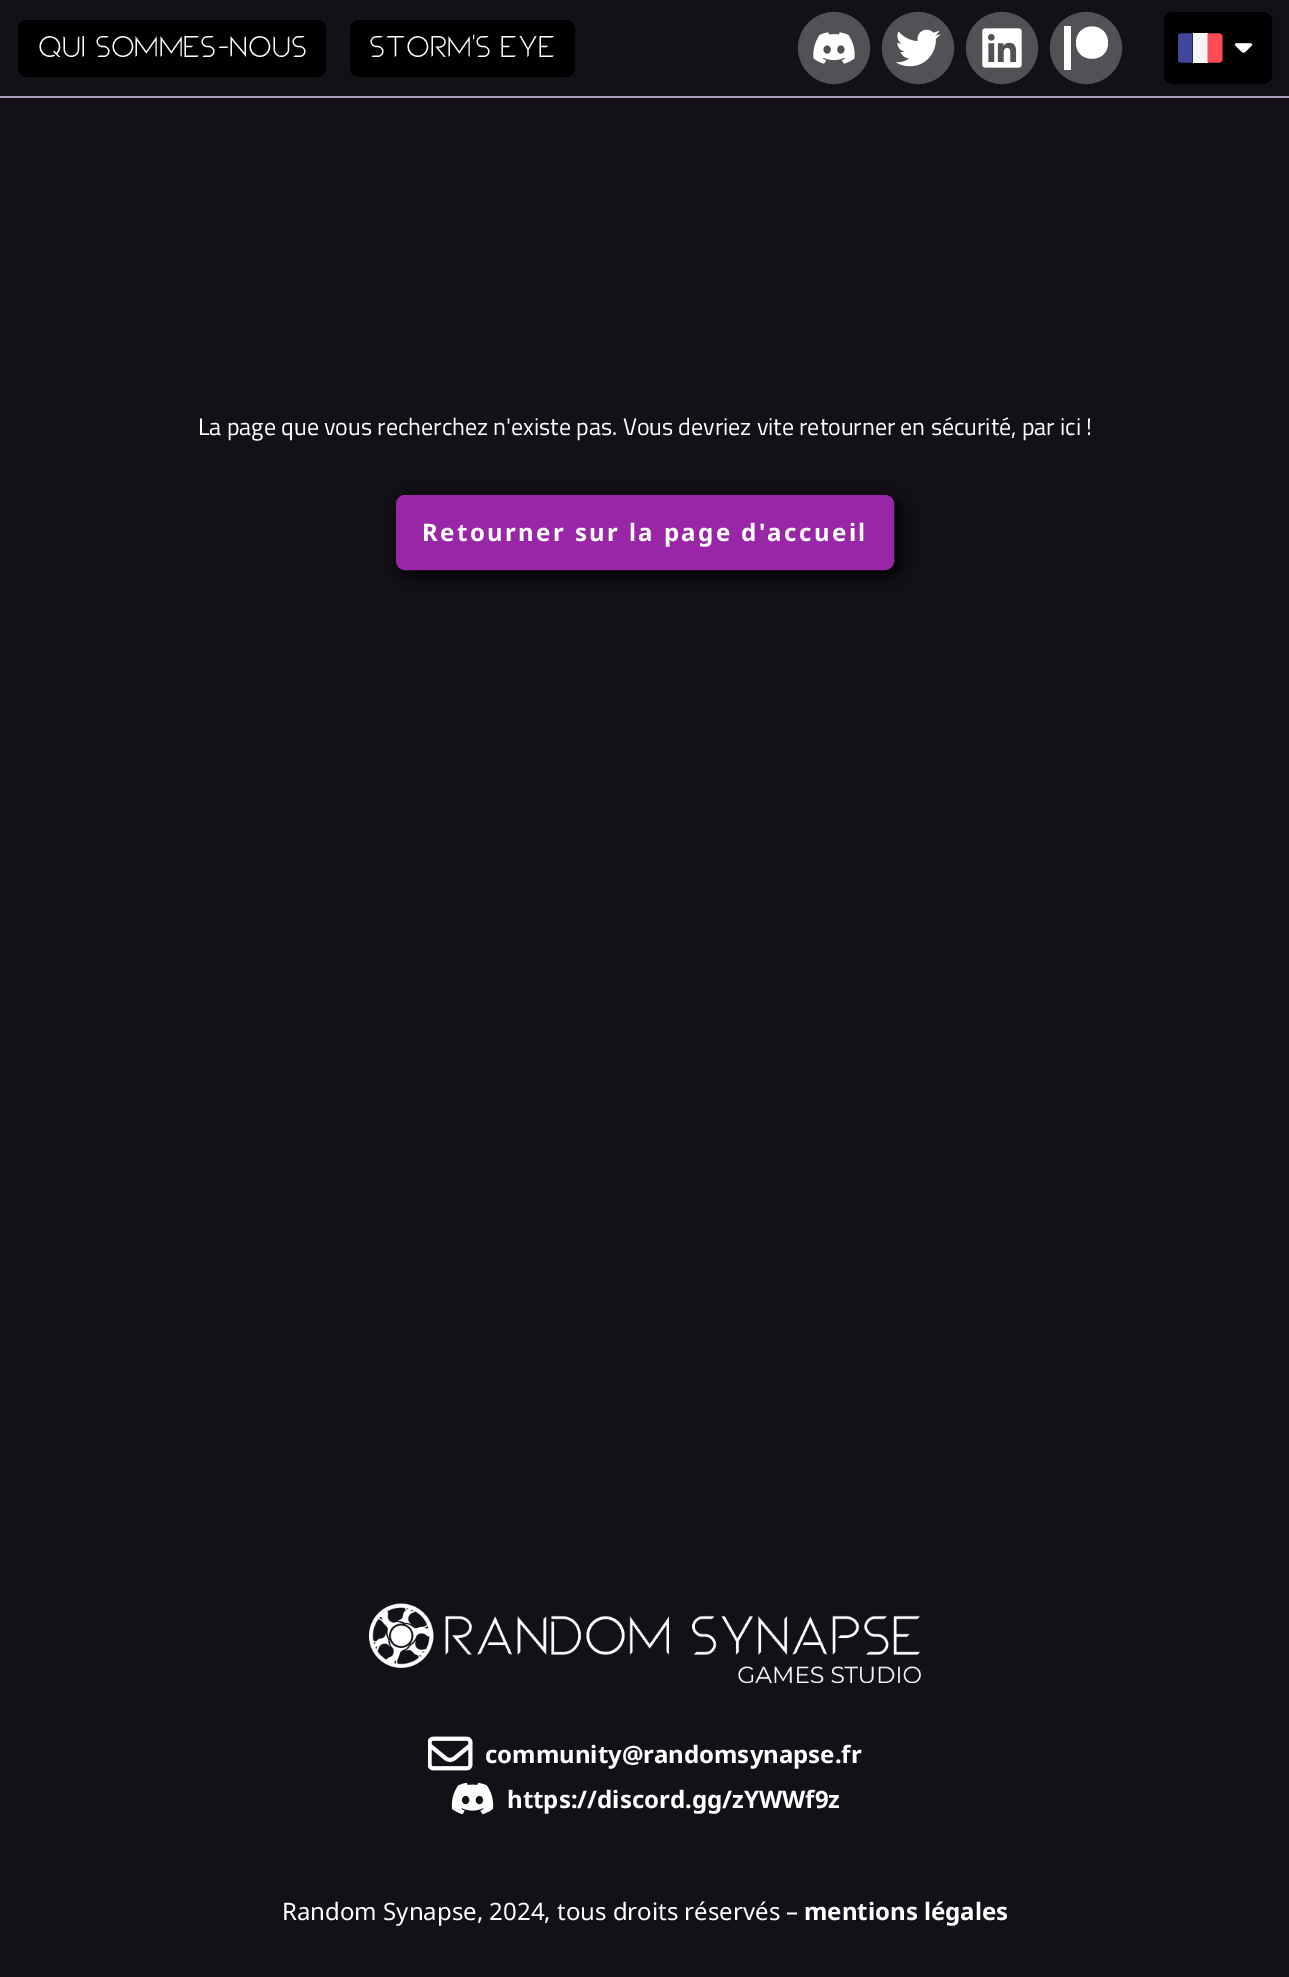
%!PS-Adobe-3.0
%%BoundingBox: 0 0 1289 1977
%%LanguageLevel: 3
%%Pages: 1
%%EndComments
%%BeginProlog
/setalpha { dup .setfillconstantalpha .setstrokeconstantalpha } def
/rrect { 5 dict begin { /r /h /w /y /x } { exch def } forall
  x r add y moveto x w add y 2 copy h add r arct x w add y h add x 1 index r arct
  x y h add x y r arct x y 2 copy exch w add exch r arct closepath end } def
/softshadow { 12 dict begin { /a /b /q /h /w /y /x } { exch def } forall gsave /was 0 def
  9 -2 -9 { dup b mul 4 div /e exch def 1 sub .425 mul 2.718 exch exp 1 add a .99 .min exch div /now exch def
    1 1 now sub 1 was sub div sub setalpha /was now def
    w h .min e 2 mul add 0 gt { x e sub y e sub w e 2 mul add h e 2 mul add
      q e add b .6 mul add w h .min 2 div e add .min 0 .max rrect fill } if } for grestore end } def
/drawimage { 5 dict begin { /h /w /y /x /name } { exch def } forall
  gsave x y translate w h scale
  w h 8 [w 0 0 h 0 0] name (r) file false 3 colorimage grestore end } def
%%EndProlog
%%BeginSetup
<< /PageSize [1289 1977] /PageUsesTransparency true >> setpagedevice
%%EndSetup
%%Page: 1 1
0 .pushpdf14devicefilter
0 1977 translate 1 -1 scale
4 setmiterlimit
0.078 0.063 0.094 setrgbcolor
0 0 1289 1977 rectfill
0.678 0.616 0.745 setrgbcolor
0 96 1289 2 rectfill
0 setgray
19 21 306 55 8 rrect gsave fill grestore
2 setlinewidth
stroke
351 21 223 55 8 rrect gsave fill grestore
stroke
0.325 0.314 0.337 setrgbcolor
newpath 834 48 35 0 360 arc closepath gsave fill grestore
stroke
(images/1.raw) 813 32 42 32 drawimage
newpath 918 48 35 0 360 arc closepath gsave fill grestore
stroke
(images/2.raw) 896 29 45 38 drawimage
newpath 1002 48 35 0 360 arc closepath gsave fill grestore
stroke
(images/3.raw) 982 28 40 40 drawimage
newpath 1086 48 35 0 360 arc closepath gsave fill grestore
stroke
1 setgray
newpath 1108 43 moveto 1108 64 1076 64 1076 43 curveto 1076 21 1108 21 1108 43 curveto closepath 1064 70 moveto 1071 70 lineto 1071 26 lineto 1064 26 lineto closepath fill
0 setgray
1165 13 106 70 8 rrect gsave fill grestore
stroke
(images/4.raw) 1178 33 45 30 drawimage
(images/5.raw) 1234 43 19 10 drawimage
401 500 498 75 9 7.5 1 softshadow
0.6 0.149 0.651 setrgbcolor
397 496 496 73 8 rrect gsave fill grestore
stroke
(images/6.raw) 369 1603 552 80 drawimage
(images/7.raw) 428 1736 45 35 drawimage
(images/8.raw) 451 1782 43 33 drawimage
/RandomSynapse-Regular [30 0 0 -30 0 0] selectfont
1 setgray
38 57 moveto (QUI SOMMES-NOUS) show
369 57 moveto (STORM'S EYE) show
/TitilliumWeb-Regular [24 0 0 -24 0 0] selectfont
198 435 moveto (La page que vous recherchez n'existe pas. Vous devriez vite retourner en sécurité, par ici !) show
/NotoSans-Bold [24 0 0 -24 0 0] selectfont
422 541 moveto 2.4 0 (Retourner sur la page d'accueil) ashow
485 1763 moveto (community@randomsynapse.fr) show
507 1808 moveto (https://discord.gg/zYWWf9z) show
/NotoSans-Regular [24 0 0 -24 0 0] selectfont
282 1920 moveto (Random Synapse, 2024, tous droits réservés –) show
/NotoSans-Bold [24 0 0 -24 0 0] selectfont
804 1920 moveto (mentions légales) show
.poppdf14devicefilter showpage
%%EOF
